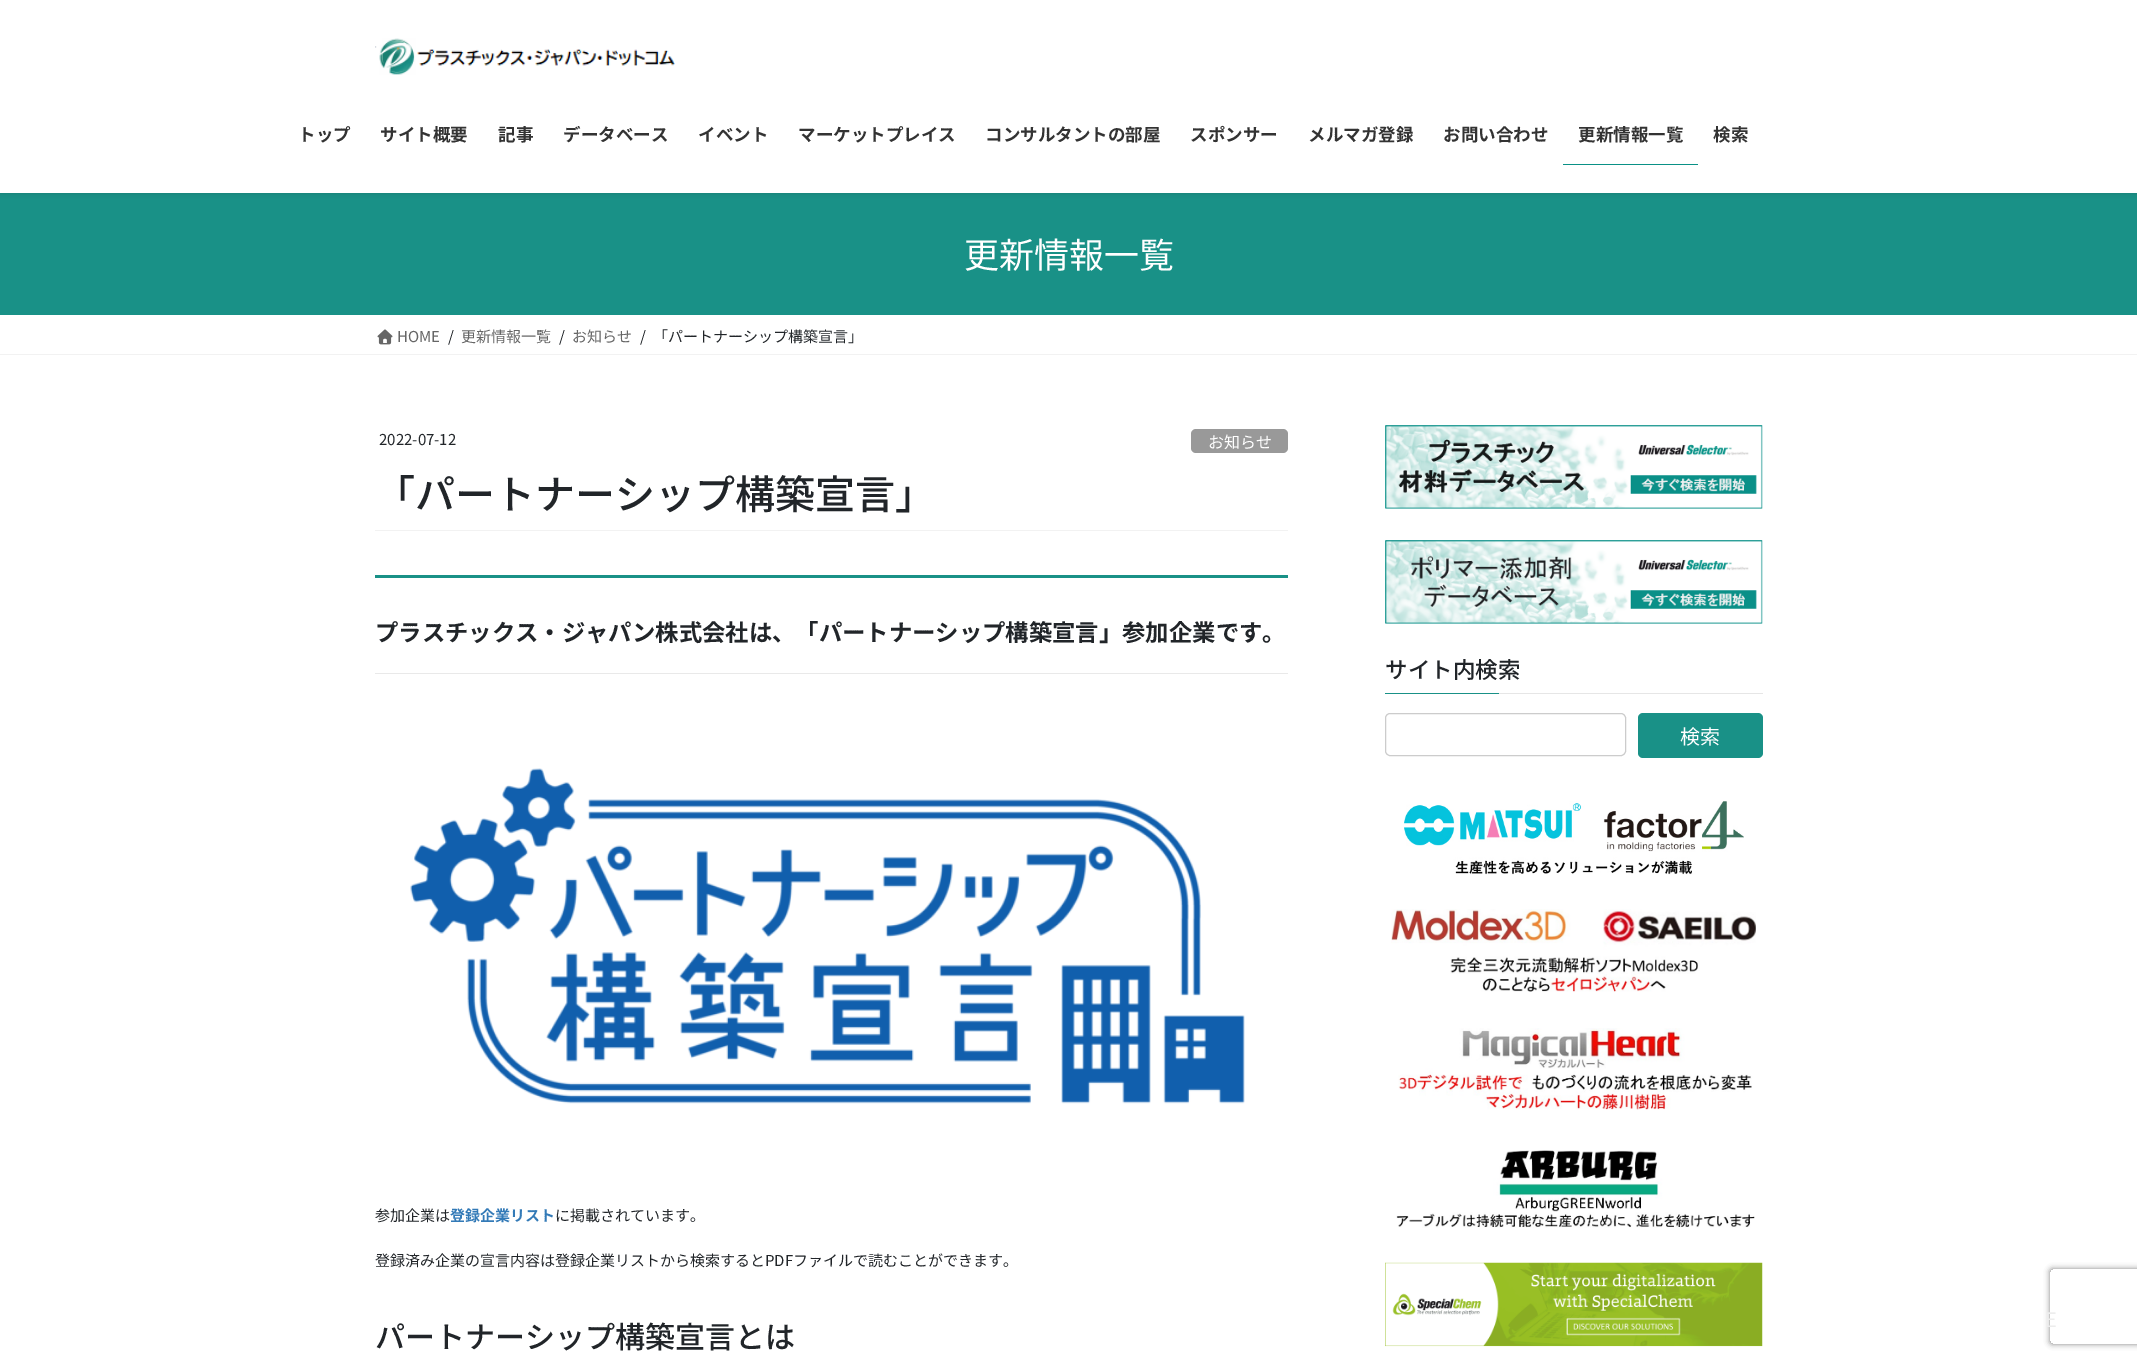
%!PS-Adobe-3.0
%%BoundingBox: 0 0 2137 1361
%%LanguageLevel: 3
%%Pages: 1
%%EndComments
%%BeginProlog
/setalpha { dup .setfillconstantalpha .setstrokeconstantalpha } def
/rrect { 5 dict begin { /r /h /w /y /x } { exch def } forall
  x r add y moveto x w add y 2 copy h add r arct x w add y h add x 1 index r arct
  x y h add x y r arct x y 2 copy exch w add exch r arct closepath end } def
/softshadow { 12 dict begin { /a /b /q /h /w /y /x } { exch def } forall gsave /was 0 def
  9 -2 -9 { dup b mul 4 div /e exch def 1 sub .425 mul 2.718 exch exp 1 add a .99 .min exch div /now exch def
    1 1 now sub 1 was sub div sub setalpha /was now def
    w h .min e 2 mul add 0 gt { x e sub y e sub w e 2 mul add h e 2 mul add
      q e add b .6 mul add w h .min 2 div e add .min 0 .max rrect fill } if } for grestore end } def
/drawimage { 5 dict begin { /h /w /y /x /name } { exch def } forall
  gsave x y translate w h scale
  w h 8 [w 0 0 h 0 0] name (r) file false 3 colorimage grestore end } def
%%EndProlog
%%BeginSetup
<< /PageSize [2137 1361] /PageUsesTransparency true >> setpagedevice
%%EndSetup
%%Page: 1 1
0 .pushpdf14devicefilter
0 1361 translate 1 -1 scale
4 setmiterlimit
1 setgray
0 0 2137 1361 rectfill
0.098 0.569 0.529 setrgbcolor
0 193 2137 122 rectfill
0 setgray
0 1 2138 193 0 2 0.1 softshadow
1 setgray
0 0 2137 193 rectfill
(images/1.raw) 375 38 300 37 drawimage
0.039 0.569 0.525 setrgbcolor
1563 164 135 1 rectfill
0.949 setgray
0 354 2137 1 rectfill
(images/2.raw) 377 329 16 16 drawimage
375 530 913 1 rectfill
0.6 setgray
1191 429 97 24 5 rrect fill
0.098 0.569 0.529 setrgbcolor
375 575 913 3 rectfill
0.914 setgray
375 673 913 1 rectfill
(images/3.raw) 410 768 835 336 drawimage
(images/4.raw) 1385 425 378 84 drawimage
(images/5.raw) 1385 540 378 84 drawimage
0.902 setgray
1499 693 264 1 rectfill
0.098 0.569 0.529 setrgbcolor
1385 693 114 1 rectfill
0.8 setgray
1385.5 713.5 240 42 4.5 rrect stroke
0.098 0.569 0.529 setrgbcolor
1638 713 125 45 5 rrect fill
(images/6.raw) 1404 801 340 74 drawimage
(images/7.raw) 1391 909 365 83 drawimage
(images/8.raw) 1398 1028 354 82 drawimage
(images/9.raw) 1396 1150 359 78 drawimage
(images/10.raw) 1385 1262 378 85 drawimage
gsave
newpath 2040 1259 moveto 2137 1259 lineto 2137 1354 lineto 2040 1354 lineto closepath 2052.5 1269 moveto 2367.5 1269 lineto 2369 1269 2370 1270 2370 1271.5 curveto 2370 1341.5 lineto 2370 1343 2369 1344 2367.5 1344 curveto 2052.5 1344 lineto 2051 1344 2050 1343 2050 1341.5 curveto 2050 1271.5 lineto 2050 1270 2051 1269 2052.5 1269 curveto closepath eoclip newpath
0.502 setgray
2050 1269 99 75 2.5 3 1 softshadow
grestore
/NotoSansJP-Bold [17.5 0 0 -17.5 0 0] selectfont
0.2 setgray
298 141 moveto (トップ) show
380 141 moveto (サイト概要) show
498 141 moveto (記事) show
563 141 moveto (データベース) show
698 141 moveto (イベント) show
798 141 moveto (マーケットプレイス) show
985 141 moveto (コンサルタントの部屋) show
1190 141 moveto (スポンサー) show
1308 141 moveto (メルマガ登録) show
1443 141 moveto (お問い合わせ) show
1578 141 moveto (更新情報一覧) show
1713 141 moveto (検索) show
/NotoSansJP-Regular [35 0 0 -35 0 0] selectfont
1 setgray
964 268 moveto (更新情報一覧) show
/NotoSansJP-Regular [15 0 0 -15 0 0] selectfont
0.4 setgray
397 342 moveto (HOME) show
0.129 0.145 0.161 setrgbcolor
448 342 moveto (/) show
0.4 setgray
461 342 moveto (更新情報一覧) show
0.129 0.145 0.161 setrgbcolor
559 342 moveto (/) show
0.4 setgray
572 342 moveto (お知らせ) show
0.129 0.145 0.161 setrgbcolor
640 342 moveto (/) show
653 342 moveto (「パートナーシップ構築宣言」) show
379 445 moveto (2022-07-12) show
/NotoSansJP-Regular [16 0 0 -16 0 0] selectfont
1 setgray
1208 448 moveto (お知らせ) show
/NotoSansJP-Medium [40 0 0 -40 0 0] selectfont
0.129 0.145 0.161 setrgbcolor
375 509 moveto (「パートナーシップ構築宣言」) show
/NotoSansJP-Bold [23.35 0 0 -23.35 0 0] selectfont
375 641 moveto (プラスチックス・ジャパン株式会社は、「パートナーシップ構築宣言」参加企業です。) show
/NotoSansJP-Regular [15 0 0 -15 0 0] selectfont
375 1221 moveto (参加企業は) show
/NotoSansJP-Bold [15 0 0 -15 0 0] selectfont
0.2 0.478 0.718 setrgbcolor
450 1221 moveto (登録企業リスト) show
/NotoSansJP-Regular [15 0 0 -15 0 0] selectfont
0.129 0.145 0.161 setrgbcolor
555 1221 moveto (に掲載されています。) show
375 1266 moveto (登録済み企業の宣言内容は登録企業リストから検索するとPDFファイルで読むことができます。) show
/NotoSansJP-Medium [30 0 0 -30 0 0] selectfont
375 1348 moveto (パートナーシップ構築宣言とは) show
/NotoSansJP-Medium [22.5 0 0 -22.5 0 0] selectfont
1385 678 moveto (サイト内検索) show
/NotoSansJP-Regular [20 0 0 -20 0 0] selectfont
1 setgray
1680 744 moveto (検索) show
0.929 setgray
2045 1327 moveto (E) show
.poppdf14devicefilter showpage
%%EOF
